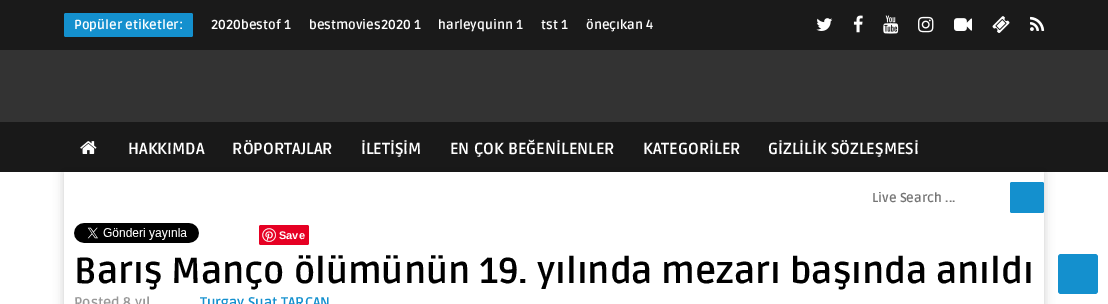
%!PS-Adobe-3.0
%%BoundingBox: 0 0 1108 304
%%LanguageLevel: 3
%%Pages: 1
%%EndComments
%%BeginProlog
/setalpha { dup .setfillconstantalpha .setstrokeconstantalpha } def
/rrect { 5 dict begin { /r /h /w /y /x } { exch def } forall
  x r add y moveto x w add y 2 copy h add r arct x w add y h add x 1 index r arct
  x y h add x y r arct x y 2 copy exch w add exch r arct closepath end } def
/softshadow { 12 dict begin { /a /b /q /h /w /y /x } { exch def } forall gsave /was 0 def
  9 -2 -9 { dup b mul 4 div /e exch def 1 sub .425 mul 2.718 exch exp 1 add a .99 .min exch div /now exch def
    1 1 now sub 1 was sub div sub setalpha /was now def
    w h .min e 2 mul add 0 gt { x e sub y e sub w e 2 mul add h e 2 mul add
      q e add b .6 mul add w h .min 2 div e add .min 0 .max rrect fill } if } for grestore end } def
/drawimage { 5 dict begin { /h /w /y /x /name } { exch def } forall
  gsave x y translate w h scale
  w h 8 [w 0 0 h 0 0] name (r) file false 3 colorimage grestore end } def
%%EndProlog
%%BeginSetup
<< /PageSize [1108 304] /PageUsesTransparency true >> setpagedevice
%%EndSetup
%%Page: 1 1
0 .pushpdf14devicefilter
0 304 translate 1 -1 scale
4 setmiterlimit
1 setgray
0 0 1108 304 rectfill
gsave
newpath 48 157 moveto 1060 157 lineto 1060 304 lineto 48 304 lineto closepath 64 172 moveto 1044 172 lineto 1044 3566 lineto 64 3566 lineto closepath eoclip newpath
0 setgray
64 173 980 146 0 5 0.2 softshadow
grestore
0.8 setalpha
0 setgray
0 50 1108 122 rectfill
1 setalpha
0.102 setgray
0 0 1108 50 rectfill
0.078 0.565 0.808 setrgbcolor
64 13 129 24 2 rrect fill
(images/1.raw) 816 18 17 13 drawimage
(images/2.raw) 853 15 10 18 drawimage
(images/3.raw) 883 15 16 19 drawimage
(images/4.raw) 918 16 16 17 drawimage
(images/5.raw) 954 18 18 13 drawimage
(images/6.raw) 992 16 18 17 drawimage
(images/7.raw) 1030 16 15 15 drawimage
0.5 setalpha
0 setgray
0 122 1108 50 rectfill
1 setalpha
(images/8.raw) 80 141 17 13 drawimage
0.078 0.565 0.808 setrgbcolor
1010 182 34 31 2 rrect fill
(images/9.raw) 74 223 125 20 drawimage
0.902 0 0.137 setrgbcolor
259 225 50 20 2 rrect fill
(images/10.raw) 262 228 14 14 drawimage
0.078 0.565 0.808 setrgbcolor
1058 254 40 40 3 rrect fill
/Ruda-Bold [13 0 0 -13 0 0] selectfont
1 setgray
74 29 moveto (Popüler etiketler:) show
211 29 moveto (2020bestof 1) show
309 29 moveto (bestmovies2020 1) show
438 29 moveto (harleyquinn 1) show
541 29 moveto (tst 1) show
586 29 moveto (öneçıkan 4) show
/Ruda-Bold [16 0 0 -16 0 0] selectfont
128 154 moveto (HAKKIMDA) show
232 154 moveto (RÖPORTAJLAR) show
361 154 moveto (İLETİŞİM) show
450 154 moveto (EN ÇOK BEĞENİLENLER) show
643 154 moveto (KATEGORİLER) show
768 154 moveto (GİZLİLİK SÖZLEŞMESİ) show
/Ruda-Bold [13 0 0 -13 0 0] selectfont
0.459 setgray
872 202 moveto (Live Search ...) show
/LiberationSans-Bold [11 0 0 -11 0 0] selectfont
1 setgray
279 239 moveto (Save) show
/Ruda-Bold [36 0 0 -36 0 0] selectfont
0 setgray
74 283 moveto (Barış Manço ölümünün 19. yılında mezarı başında anıldı) show
/Ruda-Bold [14 0 0 -14 0 0] selectfont
0.6 setgray
74 307 moveto (Posted 8 yıl) show
0.078 0.565 0.808 setrgbcolor
200 307 moveto (Turgay Suat TARCAN) show
.poppdf14devicefilter showpage
%%EOF
